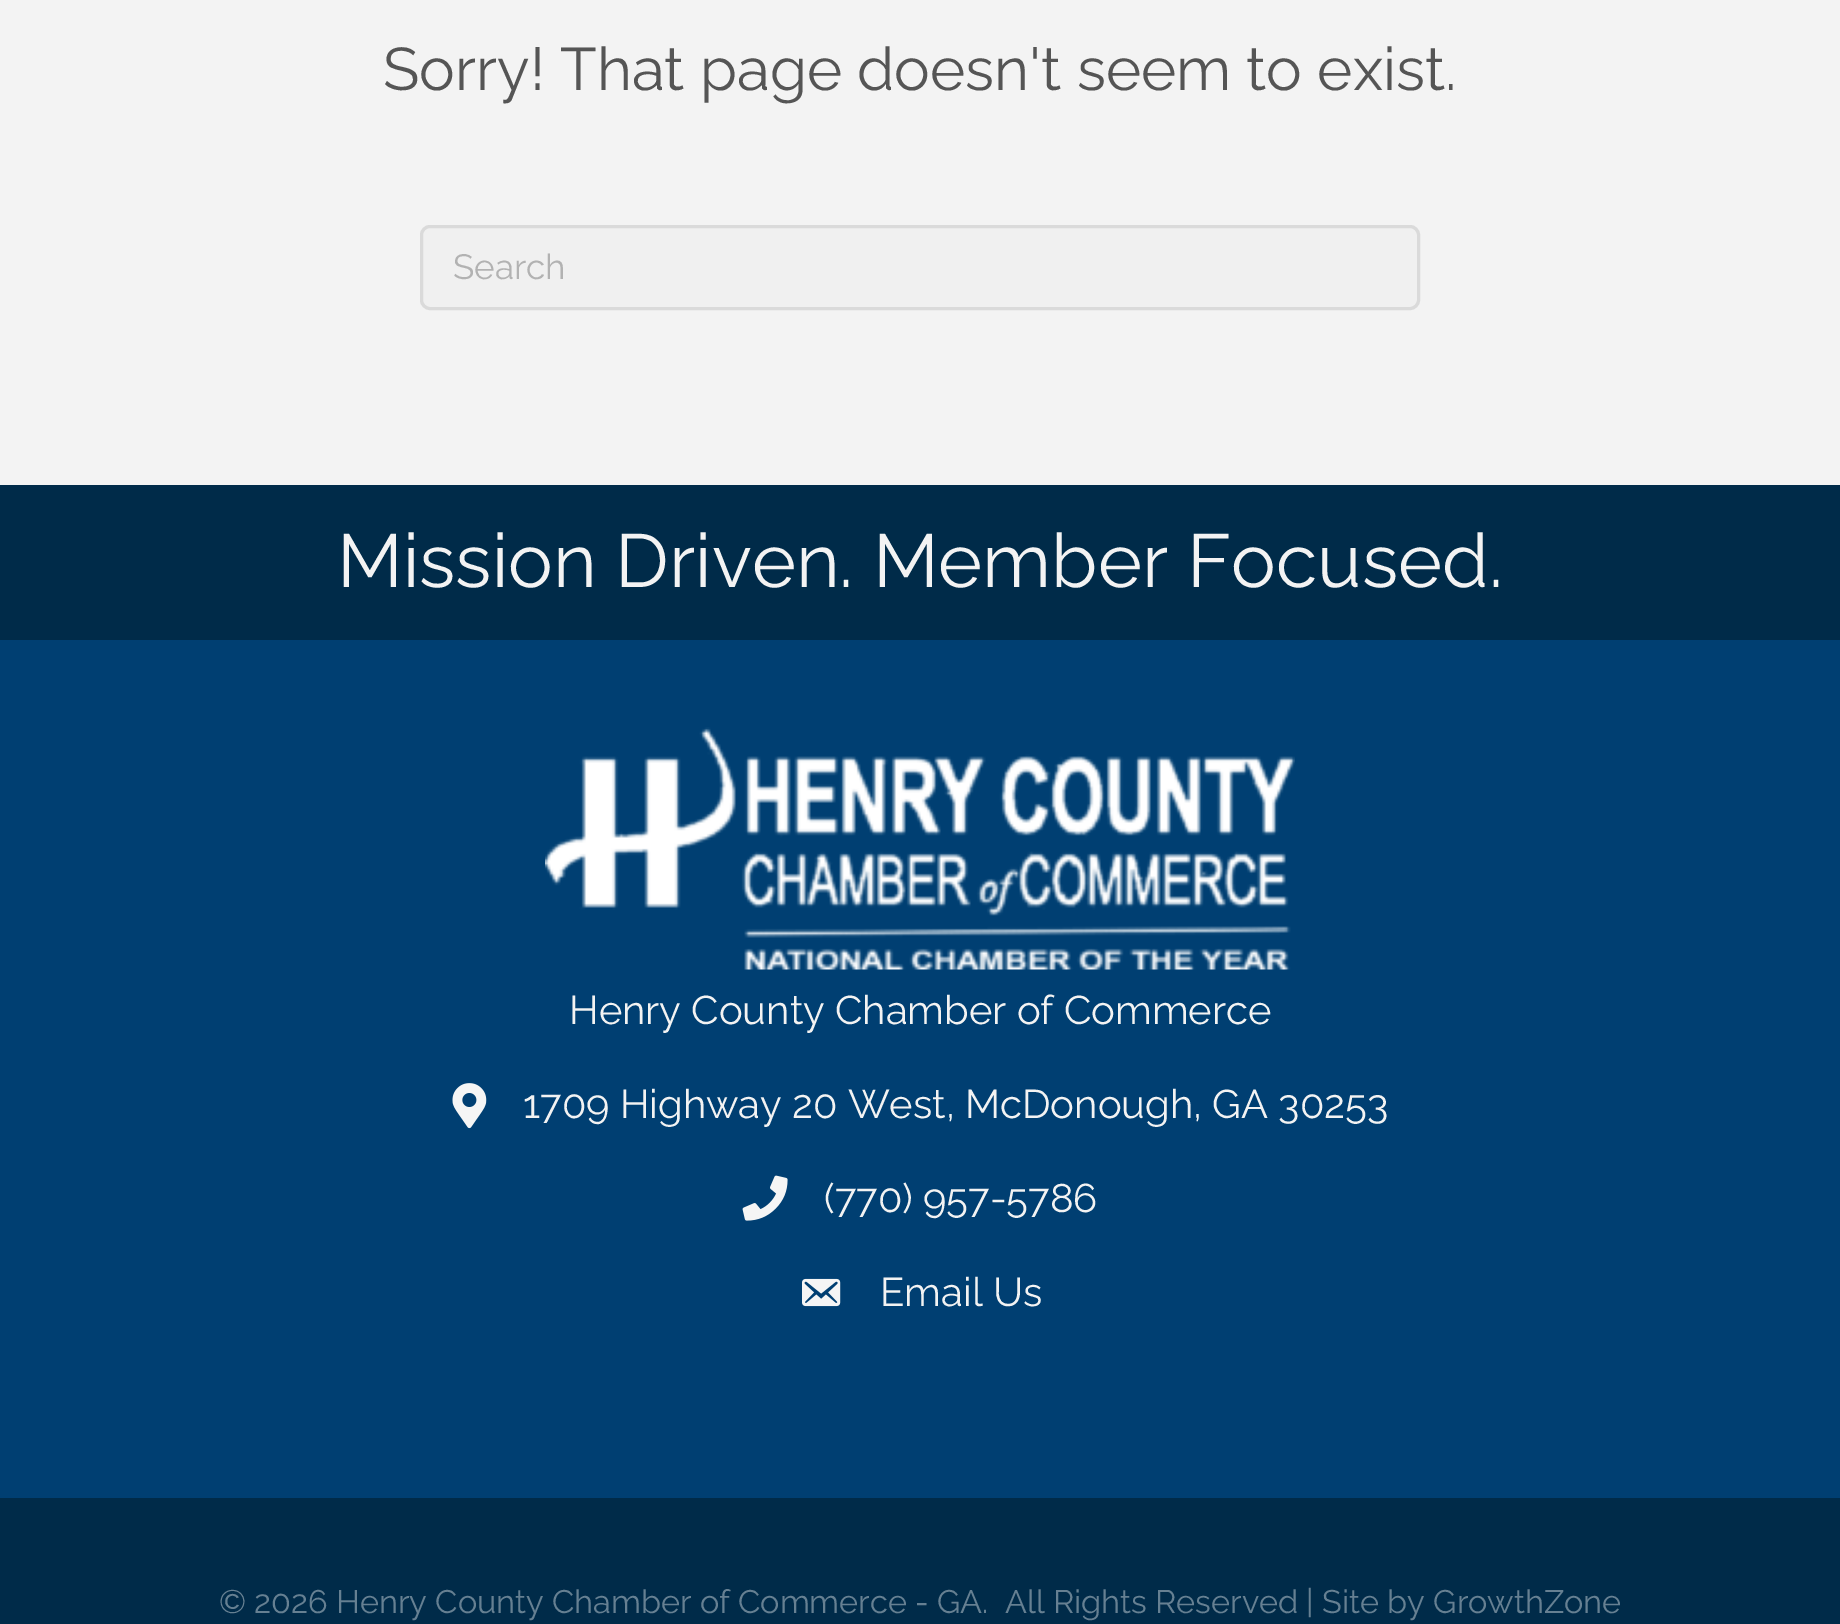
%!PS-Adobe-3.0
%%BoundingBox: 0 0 1840 1624
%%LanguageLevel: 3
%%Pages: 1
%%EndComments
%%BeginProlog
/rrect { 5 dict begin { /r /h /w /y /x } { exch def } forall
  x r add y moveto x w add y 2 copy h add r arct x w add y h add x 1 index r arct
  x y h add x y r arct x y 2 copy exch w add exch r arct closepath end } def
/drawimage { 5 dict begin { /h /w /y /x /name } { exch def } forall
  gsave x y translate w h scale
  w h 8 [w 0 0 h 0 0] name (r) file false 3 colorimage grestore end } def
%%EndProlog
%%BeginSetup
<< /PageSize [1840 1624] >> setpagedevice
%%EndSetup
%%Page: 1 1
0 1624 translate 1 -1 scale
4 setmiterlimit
0.953 setgray
0 0 1840 1624 rectfill
0.941 setgray
421.5 226.5 997 82 8.5 rrect gsave fill grestore
0.855 setgray
3 setlinewidth
stroke
0 0.169 0.286 setrgbcolor
0 485 1840 155 rectfill
0 0.247 0.447 setrgbcolor
0 640 1840 858 rectfill
(images/1.raw) 545 727 750 243 drawimage
(images/2.raw) 452 1083 35 46 drawimage
(images/3.raw) 742 1175 46 46 drawimage
(images/4.raw) 802 1278 39 29 drawimage
0 0.169 0.286 setrgbcolor
0 1498 1840 126 rectfill
/Raleway-Regular [60 0 0 -60 0 0] selectfont
0.333 setgray
383 90 moveto (Sorry! That page doesn't seem to exist.) show
/Raleway-Regular [35 0 0 -35 0 0] selectfont
0.698 setgray
453 279 moveto (Search) show
/Raleway-Regular [75 0 0 -75 0 0] selectfont
0.953 setgray
337 587 moveto (Mission Driven. Member Focused.) show
/Raleway-Regular [40 0 0 -40 0 0] selectfont
569 1024 moveto (Henry County Chamber of Commerce) show
523 1118 moveto (1709 Highway 20 West, McDonough, GA 30253) show
824 1212 moveto (\(770\) 957-5786) show
880 1306 moveto (Email Us) show
/Raleway-Regular [32.5 0 0 -32.5 0 0] selectfont
0.4 0.502 0.573 setrgbcolor
219 1613 moveto (© 2026 Henry County Chamber of Commerce - GA.) show
1005 1613 moveto (All Rights Reserved | Site by GrowthZone) show
showpage
%%EOF
